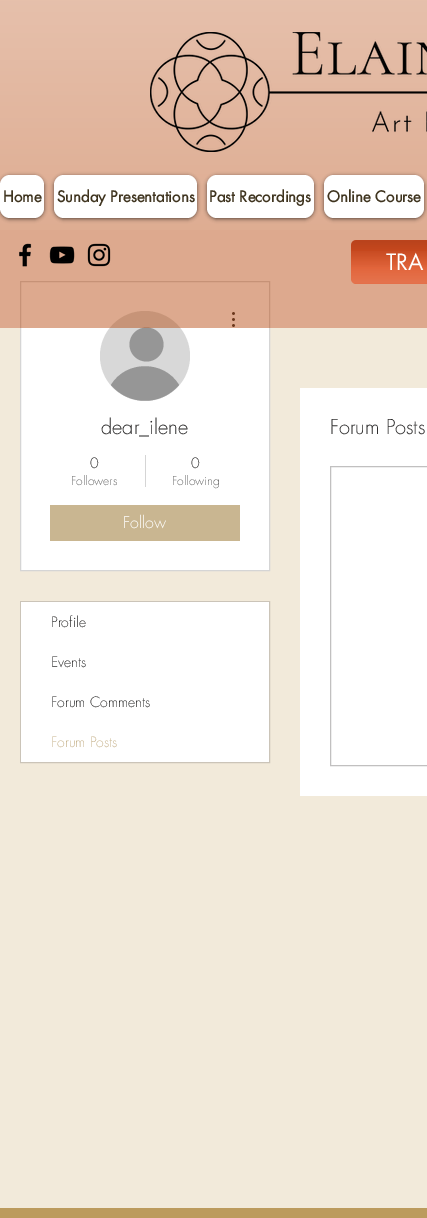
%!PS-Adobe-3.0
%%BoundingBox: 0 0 427 1218
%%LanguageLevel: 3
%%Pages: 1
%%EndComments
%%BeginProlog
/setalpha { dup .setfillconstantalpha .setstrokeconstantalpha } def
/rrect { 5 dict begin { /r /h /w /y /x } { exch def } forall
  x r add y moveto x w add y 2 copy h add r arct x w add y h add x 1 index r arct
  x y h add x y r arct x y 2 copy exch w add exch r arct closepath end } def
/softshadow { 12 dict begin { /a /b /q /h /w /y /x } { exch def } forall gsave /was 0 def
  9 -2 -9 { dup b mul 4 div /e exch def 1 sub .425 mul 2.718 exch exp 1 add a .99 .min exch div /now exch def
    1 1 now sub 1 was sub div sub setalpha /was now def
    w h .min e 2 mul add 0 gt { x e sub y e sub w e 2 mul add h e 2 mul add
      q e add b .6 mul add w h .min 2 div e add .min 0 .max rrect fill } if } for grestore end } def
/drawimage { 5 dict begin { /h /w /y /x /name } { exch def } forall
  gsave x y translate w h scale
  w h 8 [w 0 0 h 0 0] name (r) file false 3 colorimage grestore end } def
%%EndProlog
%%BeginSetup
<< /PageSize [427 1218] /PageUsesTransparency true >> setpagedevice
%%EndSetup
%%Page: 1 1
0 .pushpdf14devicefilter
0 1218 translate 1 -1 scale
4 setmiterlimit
1 setgray
0 0 427 1218 rectfill
0.949 0.918 0.855 setrgbcolor
0 328 427 880 rectfill
1 setgray
21 328 248 242 rectfill
0.835 setgray
20.5 281.5 249 289 rectstroke
0.847 setgray
newpath 145 356 45 0 360 arc closepath fill
0.588 setgray
newpath 146.5 344.5 17 0 360 arc closepath fill
(images/8.raw) 232 312 3 15 drawimage
0.45 setalpha
0.702 0.255 0.016 setrgbcolor
0 0 427 328 rectfill
1 setalpha
(images/1.raw) 0 0 427 230 drawimage
(images/2.raw) 150 32 277 120 drawimage
0 setgray
0 176 44 43 10 2 0.6 softshadow
1 setgray
0 175 44 43 10 rrect fill
0 setgray
54 176 143 43 10 2 0.6 softshadow
1 setgray
54 175 143 43 10 rrect fill
0 setgray
207 176 107 43 10 2 0.6 softshadow
1 setgray
207 175 107 43 10 rrect fill
0 setgray
324 176 100 43 10 2 0.6 softshadow
1 setgray
324 175 100 43 10 rrect fill
(images/3.raw) 19 243 13 24 drawimage
(images/4.raw) 49 246 26 18 drawimage
(images/5.raw) 87 243 24 24 drawimage
0.871 0.314 0.129 setrgbcolor
351 240 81 44 5 rrect fill
(images/6.raw) 351 240 76 26 drawimage
(images/7.raw) 351 251 76 33 drawimage
0.588 setgray
newpath 179 385 moveto 161 406 129 406 111 385 curveto 126 360 164 360 179 385 curveto closepath fill
0.835 setgray
145 455 1 32 rectfill
0.788 0.714 0.569 setrgbcolor
50 505 190 36 rectfill
0.796 0.769 0.722 setrgbcolor
20.5 601.5 249 161 rectstroke
1 setgray
21 602 248 160 rectfill
300 388 127 408 rectfill
0.757 0.753 0.753 setrgbcolor
330.5 466.5 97 299 rectstroke
0.737 0.608 0.365 setrgbcolor
0 1208 427 10 rectfill
/futura-Bold [15 0 0 -15 0 0] selectfont
0.247 0.204 0.122 setrgbcolor
3 202 moveto (Home) show
57 202 moveto (Sunday Presentations) show
209 202 moveto (Past Recordings) show
327 202 moveto (Online Course) show
/futura-Regular [22 0 0 -22 0 0] selectfont
1 setgray
386 270 moveto (TRA) show
/futura-Light [20 0 0 -20 0 0] selectfont
0.184 0.18 0.18 setrgbcolor
101 434 moveto (dear_ilene) show
/futura-Light [14 0 0 -14 0 0] selectfont
90 468 moveto (0) show
/futura-Light [12 0 0 -12 0 0] selectfont
0.427 setgray
71 485 moveto (Followers) show
/futura-Light [14 0 0 -14 0 0] selectfont
0.184 0.18 0.18 setrgbcolor
191 468 moveto (0) show
/futura-Light [12 0 0 -12 0 0] selectfont
0.427 setgray
172 485 moveto (Following) show
/futura-Light [16 0 0 -16 0 0] selectfont
1 setgray
123 528 moveto (Follow) show
/futura-Light [14 0 0 -14 0 0] selectfont
0.184 0.18 0.18 setrgbcolor
51 627 moveto (Profile) show
51 667 moveto (Events) show
51 707 moveto (Forum Comments) show
0.788 0.714 0.569 setrgbcolor
51 747 moveto (Forum Posts) show
/futura-Light [20 0 0 -20 0 0] selectfont
0.184 0.18 0.18 setrgbcolor
330 434 moveto (Forum Posts) show
.poppdf14devicefilter showpage
%%EOF
